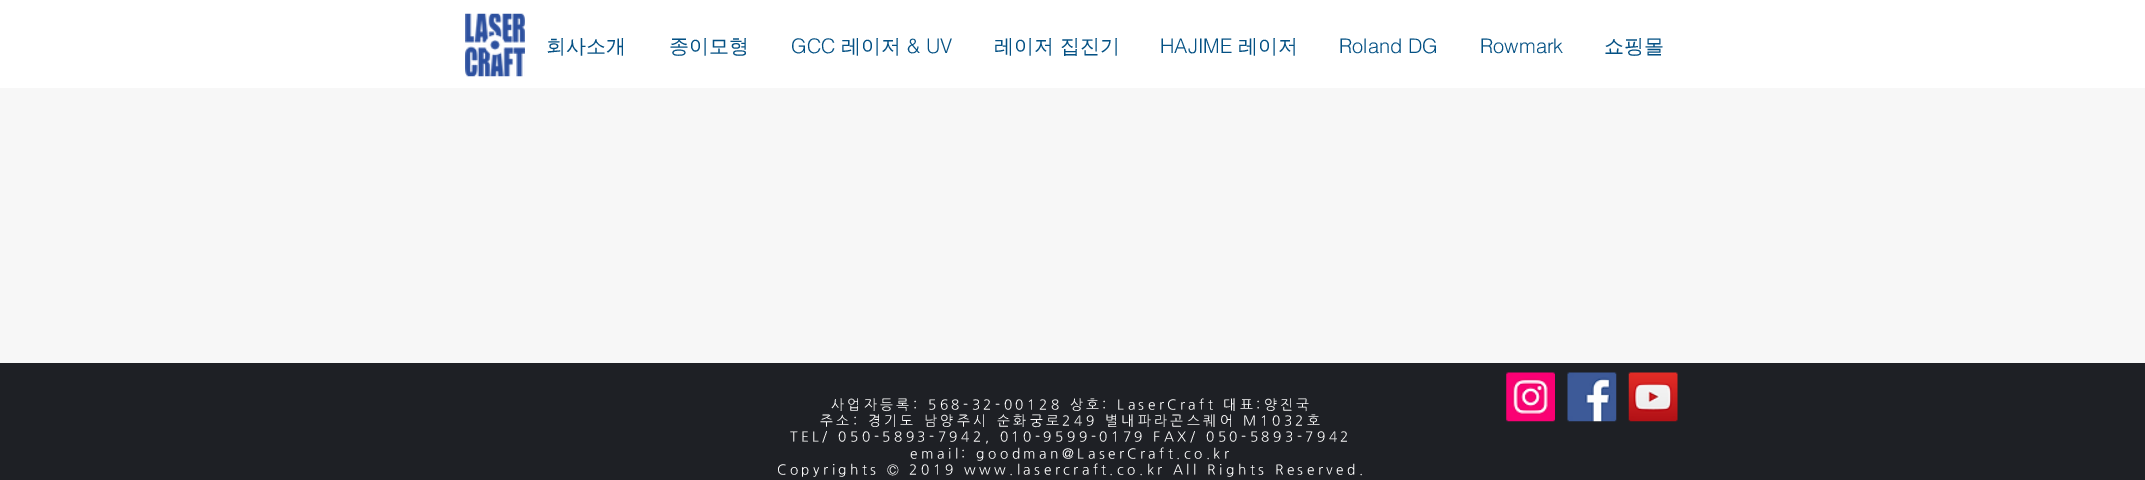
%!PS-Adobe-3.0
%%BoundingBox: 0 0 2145 480
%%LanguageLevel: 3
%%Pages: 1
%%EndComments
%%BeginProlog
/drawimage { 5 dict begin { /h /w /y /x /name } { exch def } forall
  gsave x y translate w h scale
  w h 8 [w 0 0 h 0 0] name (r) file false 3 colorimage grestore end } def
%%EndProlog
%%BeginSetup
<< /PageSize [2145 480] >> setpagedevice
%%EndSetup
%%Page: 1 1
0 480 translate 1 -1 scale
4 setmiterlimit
0.969 setgray
0 0 2145 480 rectfill
1 setgray
0 0 2145 88 rectfill
(images/1.raw) 465 13 60 64 drawimage
0.118 0.125 0.145 setrgbcolor
0 363 2145 117 rectfill
(images/2.raw) 1506 372 49 50 drawimage
(images/3.raw) 1567 372 50 50 drawimage
(images/4.raw) 1628 372 50 50 drawimage
/WenQuanYiZenHei-Medium [20 0 0 -20 0 0] selectfont
0.016 0.318 0.518 setrgbcolor
546 53 moveto (회사소개) show
669 53 moveto (종이모형) show
/helvetica-Light [20 0 0 -20 0 0] selectfont
791 53 moveto (GCC) show
/WenQuanYiZenHei-Medium [20 0 0 -20 0 0] selectfont
841 53 moveto (레이저) show
/helvetica-Light [20 0 0 -20 0 0] selectfont
907 53 moveto (& UV) show
/WenQuanYiZenHei-Medium [20 0 0 -20 0 0] selectfont
994 53 moveto (레이저 집진기) show
/helvetica-Light [20 0 0 -20 0 0] selectfont
1160 53 moveto (HAJIME) show
/WenQuanYiZenHei-Medium [20 0 0 -20 0 0] selectfont
1238 53 moveto (레이저) show
/helvetica-Light [20 0 0 -20 0 0] selectfont
1339 53 moveto (Roland DG) show
1480 53 moveto (Rowmark) show
/WenQuanYiZenHei-Medium [20 0 0 -20 0 0] selectfont
1604 53 moveto (쇼핑몰) show
/NanumGothic-Regular [13.75 0 0 -13.75 0 0] selectfont
1 setgray
831 409 moveto 3.45 0 (사업자등록: 568-32-00128 상호: LaserCraft 대표:양진국) ashow
820 425 moveto 3.45 0 (주소: 경기도 남양주시 순화궁로249 별내파라곤스퀘어 M1032호) ashow
790 441 moveto 3.45 0 (TEL/ 050-5893-7942, 010-9599-0179 FAX/ 050-5893-7942) ashow
910 458 moveto 3.45 0 (email: goodman@LaserCraft.co.kr) ashow
777 474 moveto 3.45 0 (Copyrights © 2019 www.lasercraft.co.kr All Rights Reserved.) ashow
showpage
%%EOF
